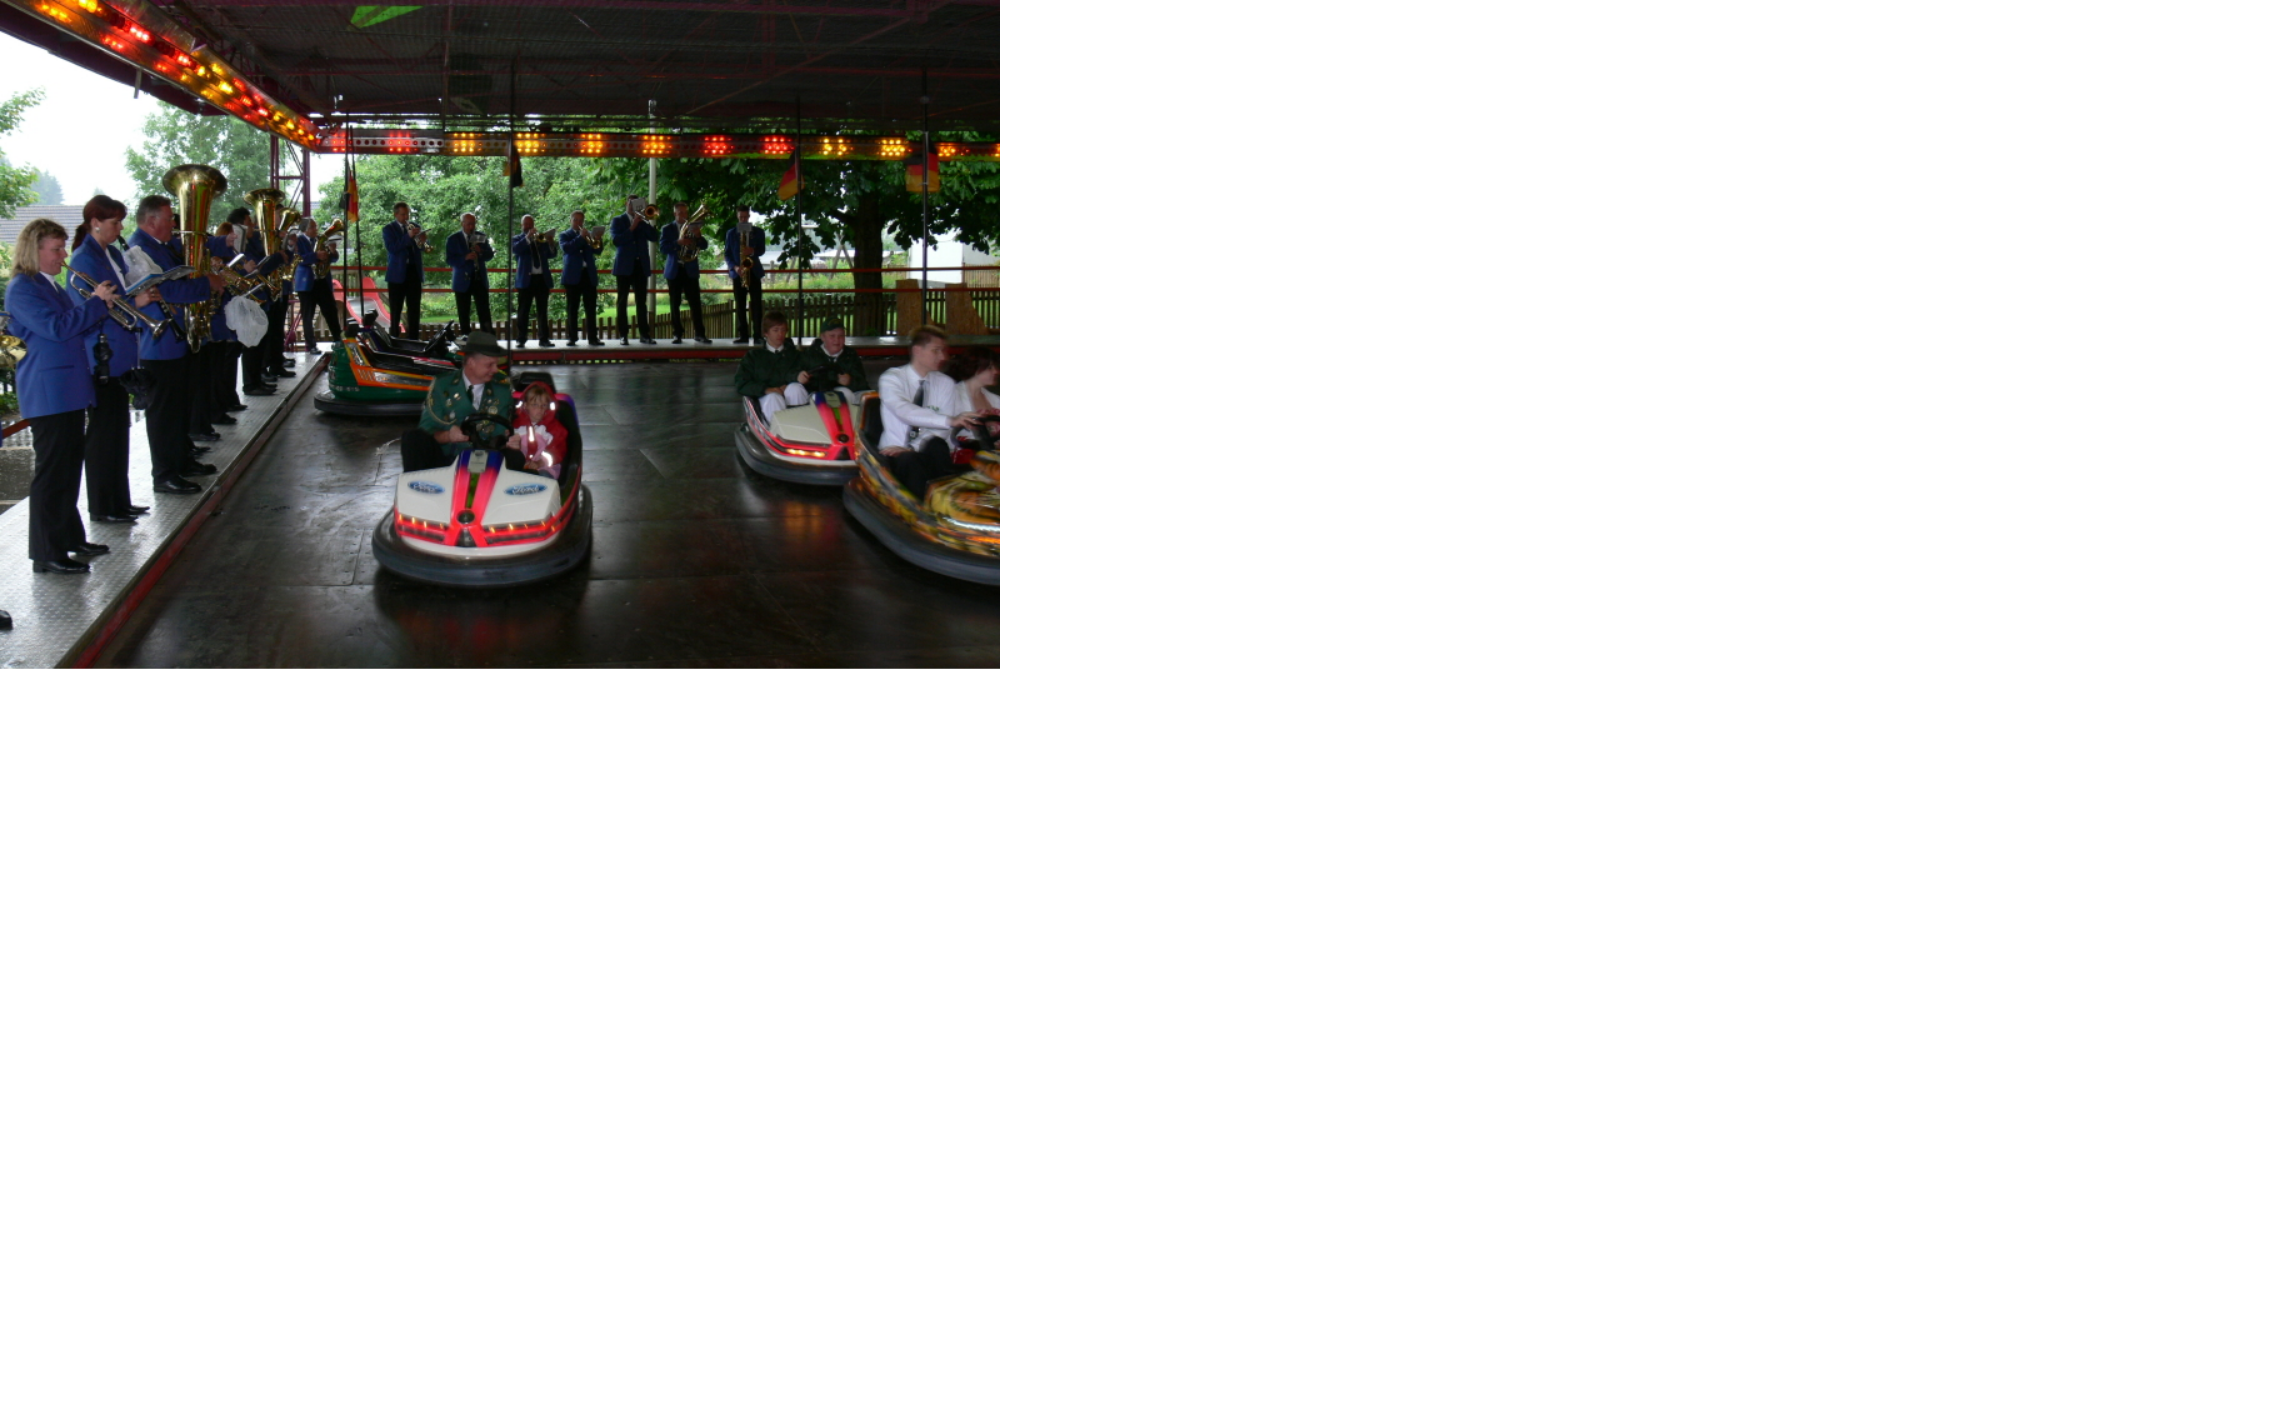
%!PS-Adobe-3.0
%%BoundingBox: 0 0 2279 1406
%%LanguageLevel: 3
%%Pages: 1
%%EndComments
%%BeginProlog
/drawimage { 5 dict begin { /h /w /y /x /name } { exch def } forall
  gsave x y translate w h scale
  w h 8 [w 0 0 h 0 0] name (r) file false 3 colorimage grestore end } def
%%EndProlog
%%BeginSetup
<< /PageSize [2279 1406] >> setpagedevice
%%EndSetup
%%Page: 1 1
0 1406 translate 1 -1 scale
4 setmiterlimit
1 setgray
0 0 2279 1406 rectfill
(images/1.raw) 0 0 1000 669 drawimage
showpage
%%EOF
